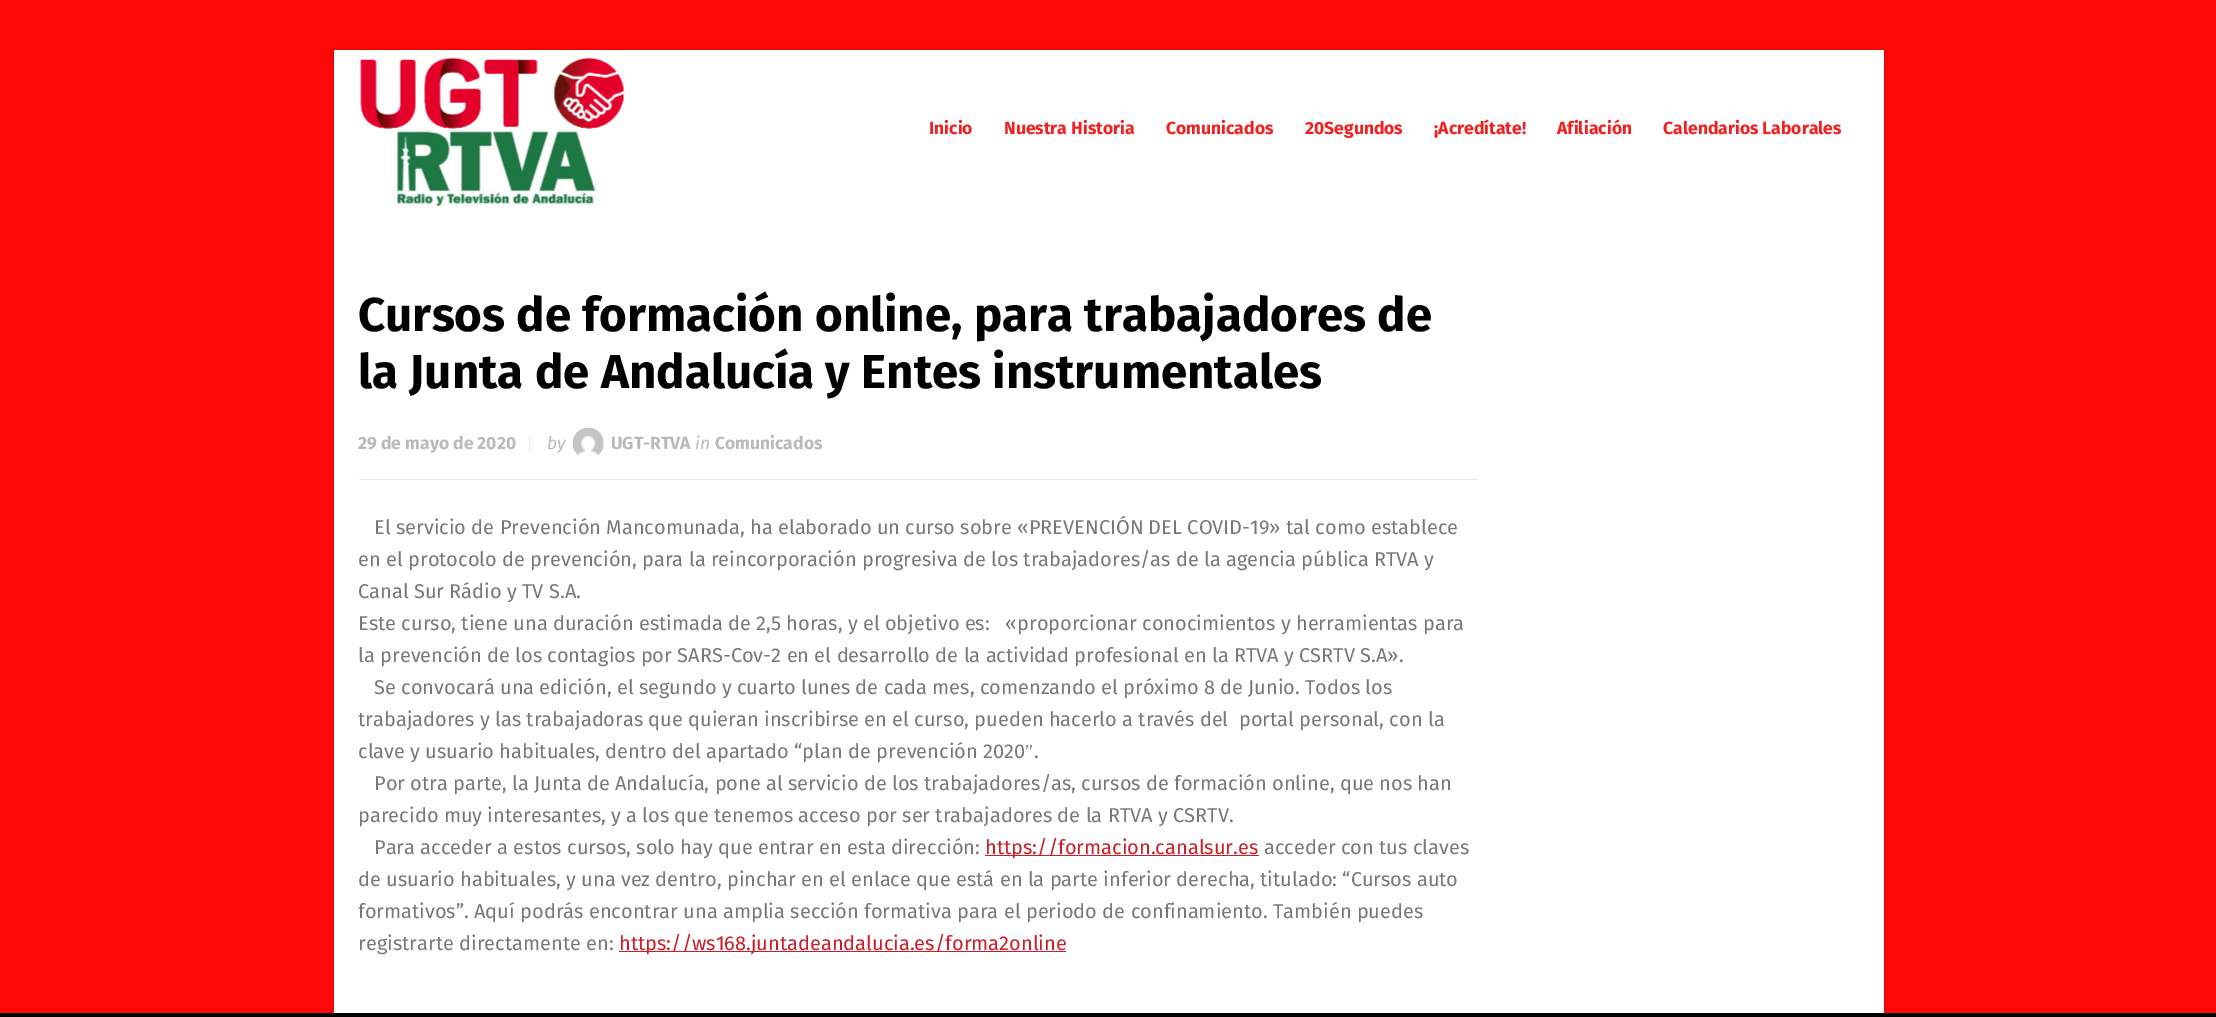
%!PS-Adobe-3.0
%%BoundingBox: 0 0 2216 1017
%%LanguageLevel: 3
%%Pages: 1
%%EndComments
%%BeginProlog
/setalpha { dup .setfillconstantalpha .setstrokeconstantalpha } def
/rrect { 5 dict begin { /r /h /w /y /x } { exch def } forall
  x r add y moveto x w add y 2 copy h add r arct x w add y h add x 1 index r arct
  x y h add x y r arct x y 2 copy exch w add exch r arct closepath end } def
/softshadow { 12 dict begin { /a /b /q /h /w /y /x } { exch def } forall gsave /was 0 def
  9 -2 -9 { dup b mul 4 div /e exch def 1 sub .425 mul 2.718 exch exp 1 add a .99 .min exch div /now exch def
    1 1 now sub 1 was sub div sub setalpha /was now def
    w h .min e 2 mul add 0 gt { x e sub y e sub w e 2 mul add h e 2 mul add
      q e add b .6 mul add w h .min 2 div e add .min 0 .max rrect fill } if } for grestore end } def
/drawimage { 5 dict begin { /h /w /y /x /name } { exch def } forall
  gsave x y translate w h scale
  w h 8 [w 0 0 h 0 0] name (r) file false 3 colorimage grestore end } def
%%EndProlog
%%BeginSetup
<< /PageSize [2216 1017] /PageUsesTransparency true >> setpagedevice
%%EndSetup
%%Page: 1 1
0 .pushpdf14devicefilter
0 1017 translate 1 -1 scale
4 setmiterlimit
1 0.027 0.027 setrgbcolor
0 0 2216 1017 rectfill
0 setgray
334 50 1550 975 0 2.5 0.15 softshadow
1 setgray
334 50 1550 963 rectfill
(images/1.raw) 360 57 265 150 drawimage
0.91 setgray
359 479 1119 1 rectfill
529 435 1 18 rectfill
(images/2.raw) 572 427 32 29 drawimage
0.808 0.106 0.157 setrgbcolor
985 855 274 1 rectfill
619 951 447 1 rectfill
0 setgray
0 1013 2216 4 rectfill
/FiraSans-Bold [17.5 0 0 -17.5 0 0] selectfont
0.961 0.118 0.118 setrgbcolor
929 134 moveto (Inicio) show
1004 134 moveto (Nuestra Historia) show
1166 134 moveto (Comunicados) show
1305 134 moveto (20Segundos) show
1434 134 moveto (¡Acredítate!) show
1557 134 moveto (Afiliación) show
1663 134 moveto (Calendarios Laborales) show
/FiraSans-Bold [47.5 0 0 -47.5 0 0] selectfont
0 setgray
358 331 moveto (Cursos de formación online, para trabajadores de) show
358 388 moveto (la Junta de Andalucía y Entes instrumentales) show
/FiraSans-Bold [17.5 0 0 -17.5 0 0] selectfont
0.725 setgray
358 449 moveto (29 de mayo de 2020) show
/FiraSans-Italic [17.5 0 0 -17.5 0 0] selectfont
547 449 moveto (by) show
/FiraSans-Bold [17.5 0 0 -17.5 0 0] selectfont
611 449 moveto (UGT-RTVA) show
/FiraSans-Italic [17.5 0 0 -17.5 0 0] selectfont
695 449 moveto (in) show
/FiraSans-Bold [17.5 0 0 -17.5 0 0] selectfont
715 449 moveto (Comunicados) show
/FiraSans-Regular [20 0 0 -20 0 0] selectfont
0.467 setgray
374 534 moveto (El servicio de Prevención Mancomunada, ha elaborado un curso sobre «PREVENCIÓN DEL COVID-19» tal como establece) show
358 566 moveto (en el protocolo de prevención, para la reincorporación progresiva de los trabajadores/as de la agencia pública RTVA y) show
358 598 moveto (Canal Sur Rádio y TV S.A.) show
358 630 moveto (Este curso, tiene una duración estimada de 2,5 horas, y el objetivo es:   «proporcionar conocimientos y herramientas para) show
358 662 moveto (la prevención de los contagios por SARS-Cov-2 en el desarrollo de la actividad profesional en la RTVA y CSRTV S.A».) show
374 694 moveto (Se convocará una edición, el segundo y cuarto lunes de cada mes, comenzando el próximo 8 de Junio. Todos los) show
358 726 moveto (trabajadores y las trabajadoras que quieran inscribirse en el curso, pueden hacerlo a través del  portal personal, con la) show
358 758 moveto (clave y usuario habituales, dentro del apartado “plan de prevención 2020) show
/LiberationSerif-Regular [20 0 0 -20 0 0] selectfont
1025 758 moveto (″) show
/FiraSans-Regular [20 0 0 -20 0 0] selectfont
1034 758 moveto (.) show
374 790 moveto (Por otra parte, la Junta de Andalucía, pone al servicio de los trabajadores/as, cursos de formación online, que nos han) show
358 822 moveto (parecido muy interesantes, y a los que tenemos acceso por ser trabajadores de la RTVA y CSRTV.) show
374 854 moveto (Para acceder a estos cursos, solo hay que entrar en esta dirección:) show
0.808 0.106 0.157 setrgbcolor
985 854 moveto (https://formacion.canalsur.es) show
0.467 setgray
1264 854 moveto (acceder con tus claves) show
358 886 moveto (de usuario habituales, y una vez dentro, pinchar en el enlace que está en la parte inferior derecha, titulado: “Cursos auto) show
358 918 moveto (formativos”. Aquí podrás encontrar una amplia sección formativa para el periodo de confinamiento. También puedes) show
358 950 moveto (registrarte directamente en:) show
0.808 0.106 0.157 setrgbcolor
619 950 moveto (https://ws168.juntadeandalucia.es/forma2online) show
.poppdf14devicefilter showpage
%%EOF
